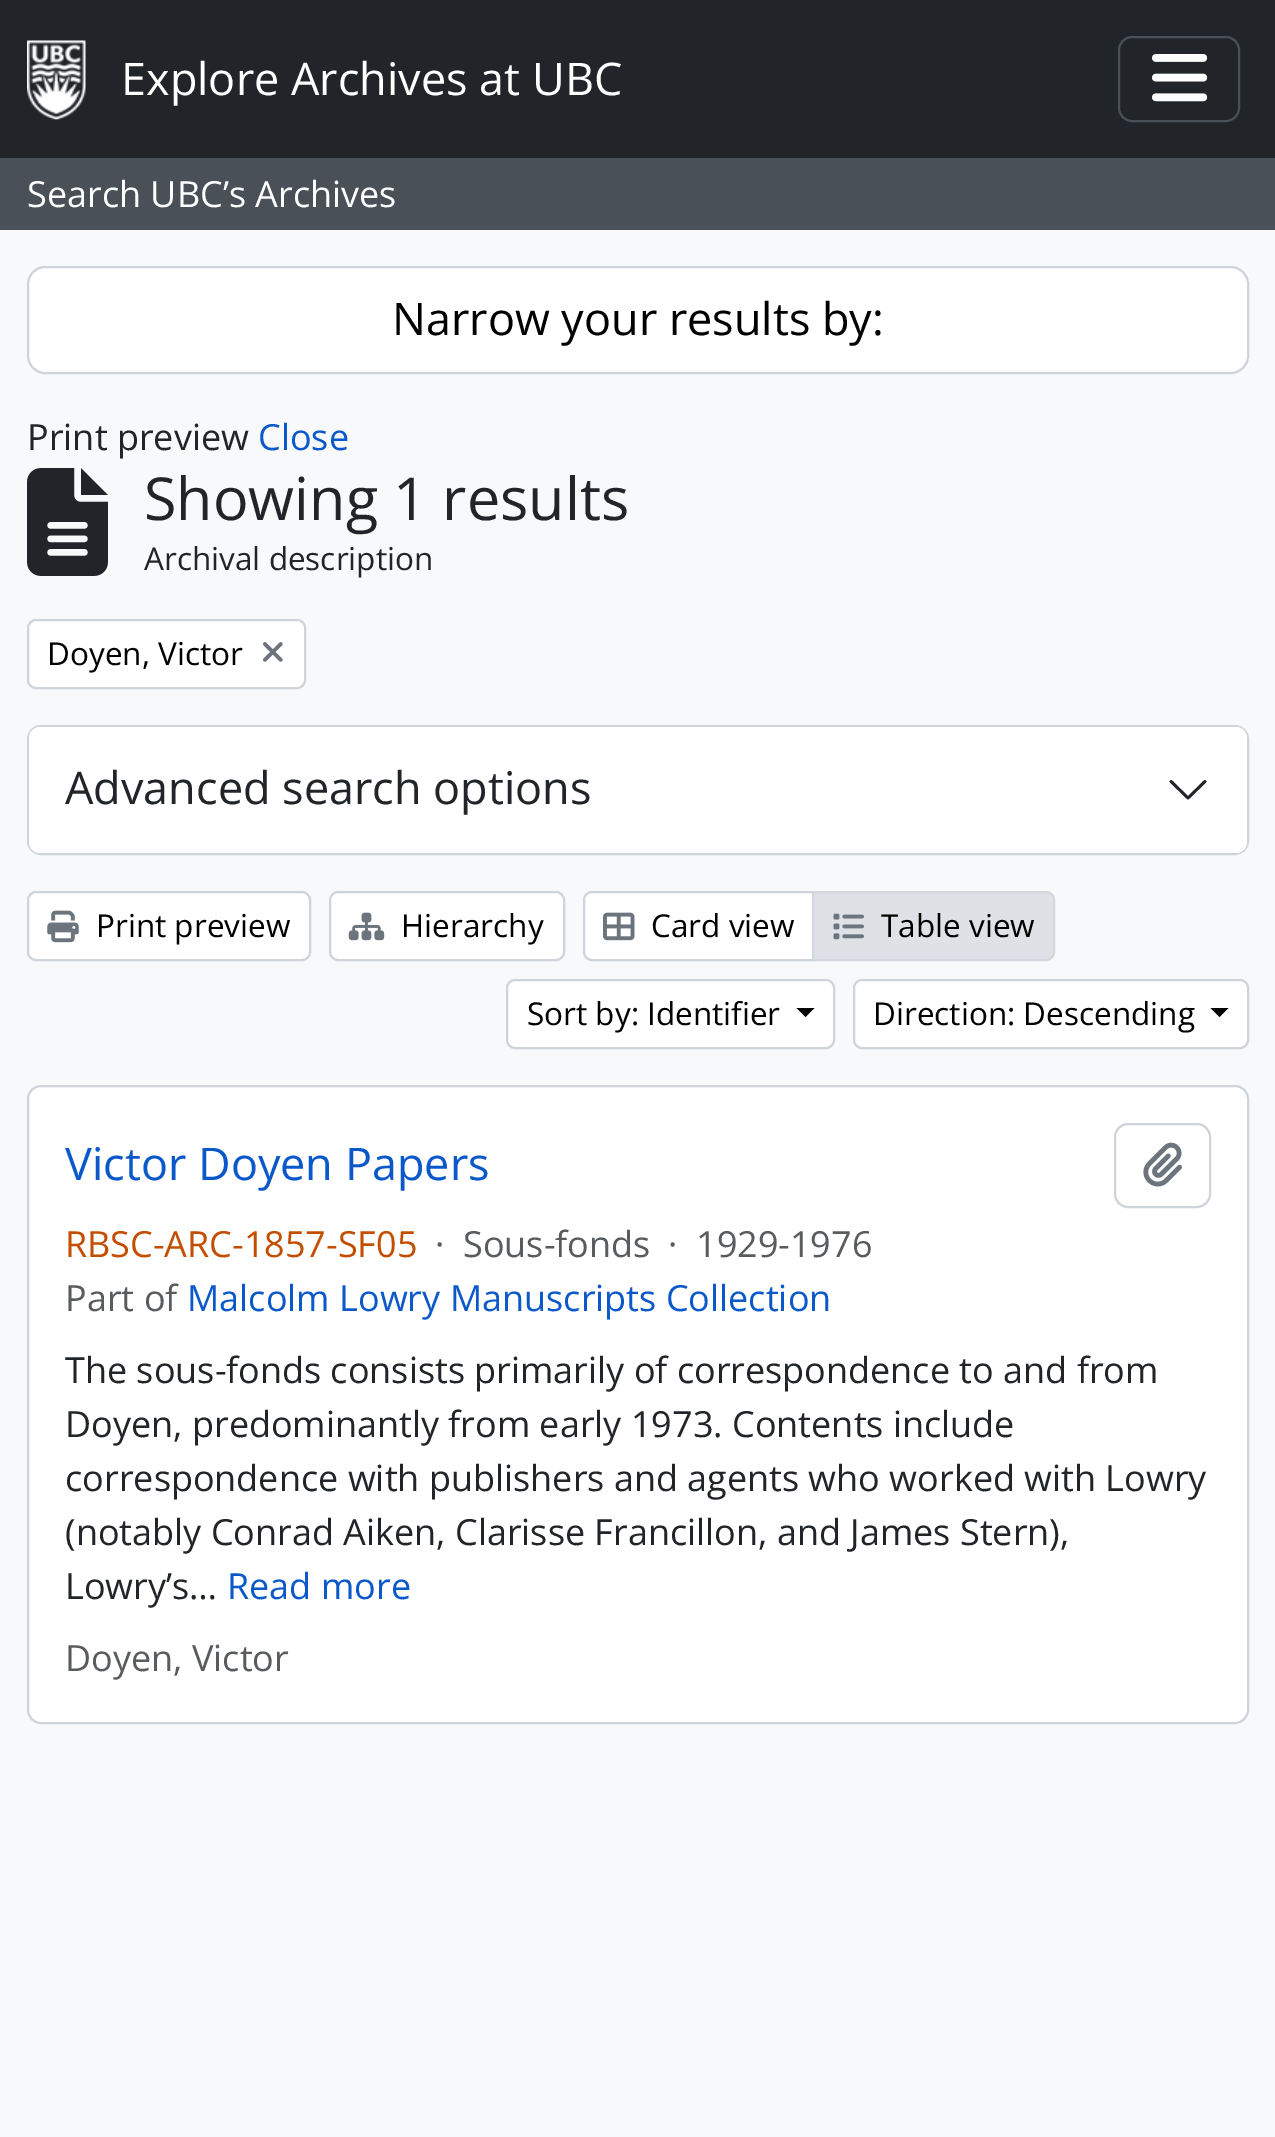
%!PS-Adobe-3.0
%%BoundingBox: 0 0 1275 2137
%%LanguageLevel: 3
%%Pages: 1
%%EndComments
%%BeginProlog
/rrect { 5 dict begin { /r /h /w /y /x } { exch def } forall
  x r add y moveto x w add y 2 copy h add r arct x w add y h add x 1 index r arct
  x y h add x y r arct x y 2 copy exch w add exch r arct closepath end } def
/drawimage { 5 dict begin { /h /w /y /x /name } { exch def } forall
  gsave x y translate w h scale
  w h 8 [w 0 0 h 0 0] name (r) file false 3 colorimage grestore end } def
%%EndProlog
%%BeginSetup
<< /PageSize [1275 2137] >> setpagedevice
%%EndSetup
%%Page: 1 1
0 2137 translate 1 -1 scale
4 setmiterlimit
0.973 0.976 0.98 setrgbcolor
0 0 1275 2137 rectfill
0.129 0.145 0.161 setrgbcolor
0 0 1275 158 rectfill
(images/1.raw) 27 40 59 80 drawimage
0.286 0.314 0.341 setrgbcolor
2 setlinewidth
1119 37 120 84 13 rrect stroke
(images/2.raw) 1152 54 56 48 drawimage
0 158 1275 72 rectfill
1 setgray
28 267 1220 106 17 rrect gsave fill grestore
0.808 0.831 0.855 setrgbcolor
stroke
(images/3.raw) 27 468 81 108 drawimage
1 setgray
28 620 277 68 8 rrect gsave fill grestore
0.808 0.831 0.855 setrgbcolor
stroke
(images/4.raw) 263 642 20 20 drawimage
28 726 1220 128 13 rrect stroke
1 setgray
29 727 1218 126 11 rrect fill
0.129 0.145 0.161 setrgbcolor
2.8 setlinewidth
1 setlinecap
1 setlinejoin
newpath 1171 781.5 moveto 1188 798 lineto 1205 781.5 lineto stroke
1 setgray
28 892 282 68 8 rrect gsave fill grestore
0.808 0.831 0.855 setrgbcolor
2 setlinewidth
0 setlinecap
0 setlinejoin
stroke
(images/5.raw) 47 910 32 33 drawimage
1 setgray
330 892 234 68 8 rrect gsave fill grestore
0.808 0.831 0.855 setrgbcolor
stroke
(images/6.raw) 348 912 37 29 drawimage
1 setgray
newpath 592 892 moveto 814 892 lineto 814 960 lineto 592 960 lineto 587.5 960 584 956.5 584 952 curveto 584 900 lineto 584 895.5 587.5 892 592 892 curveto closepath gsave fill grestore
0.808 0.831 0.855 setrgbcolor
stroke
(images/7.raw) 603 912 32 29 drawimage
0.871 0.886 0.902 setrgbcolor
newpath 813 892 moveto 1046 892 lineto 1050.5 892 1054 895.5 1054 900 curveto 1054 952 lineto 1054 956.5 1050.5 960 1046 960 curveto 813 960 lineto closepath gsave fill grestore
0.827 0.847 0.871 setrgbcolor
stroke
(images/8.raw) 833 913 31 27 drawimage
1 setgray
507 980 327 68 8 rrect gsave fill grestore
0.808 0.831 0.855 setrgbcolor
stroke
0 setgray
newpath 796.5 1008 moveto 814.5 1008 lineto 805.5 1017 lineto closepath fill
1 setgray
854 980 394 68 8 rrect gsave fill grestore
0.808 0.831 0.855 setrgbcolor
stroke
0 setgray
newpath 1210.5 1008 moveto 1228.5 1008 lineto 1219.5 1017 lineto closepath fill
1 setgray
28 1086 1220 637 13 rrect gsave fill grestore
0.808 0.831 0.855 setrgbcolor
stroke
1115 1124 95 83 13 rrect stroke
(images/9.raw) 1143 1142 39 45 drawimage
/OpenSans-Regular [45 0 0 -45 0 0] selectfont
1 setgray
121 95 moveto (Explore Archives at UBC) show
/OpenSans-Regular [36 0 0 -36 0 0] selectfont
27 207 moveto (Search UBC’s Archives) show
/OpenSans-Regular [45 0 0 -45 0 0] selectfont
0 setgray
392 335 moveto (Narrow your results by:) show
/OpenSans-Regular [36 0 0 -36 0 0] selectfont
0.129 0.145 0.161 setrgbcolor
27 450 moveto (Print preview) show
0.039 0.345 0.792 setrgbcolor
258 450 moveto (Close) show
/OpenSans-Regular [59.25 0 0 -59.25 0 0] selectfont
0.129 0.145 0.161 setrgbcolor
144 520 moveto (Showing 1 results) show
/OpenSans-Regular [31.5 0 0 -31.5 0 0] selectfont
144 570 moveto (Archival description) show
0 setgray
47 665 moveto (Doyen, Victor) show
/OpenSans-Regular [45 0 0 -45 0 0] selectfont
0.129 0.145 0.161 setrgbcolor
65 804 moveto (Advanced search options) show
/OpenSans-Regular [31.5 0 0 -31.5 0 0] selectfont
0 setgray
96 937 moveto (Print preview) show
401 937 moveto (Hierarchy) show
651 937 moveto (Card view) show
881 937 moveto (Table view) show
527 1025 moveto (Sort by: Identifier) show
873 1025 moveto (Direction: Descending) show
/OpenSans-Regular [45 0 0 -45 0 0] selectfont
0.039 0.345 0.792 setrgbcolor
65 1180 moveto (Victor Doyen Papers) show
/OpenSans-Regular [36 0 0 -36 0 0] selectfont
0.769 0.306 0 setrgbcolor
65 1257 moveto (RBSC-ARC-1857-SF05) show
0.349 0.361 0.373 setrgbcolor
435 1257 moveto (·) show
463 1257 moveto (Sous-fonds) show
668 1257 moveto (·) show
696 1257 moveto (1929-1976) show
65 1311 moveto (Part of) show
0.039 0.345 0.792 setrgbcolor
187 1311 moveto (Malcolm Lowry Manuscripts Collection) show
0.129 0.145 0.161 setrgbcolor
65 1383 moveto (The sous-fonds consists primarily of correspondence to and from) show
65 1437 moveto (Doyen, predominantly from early 1973. Contents include) show
65 1491 moveto (correspondence with publishers and agents who worked with Lowry) show
65 1545 moveto (\(notably Conrad Aiken, Clarisse Francillon, and James Stern\),) show
65 1599 moveto (Lowry’s…) show
0.039 0.345 0.792 setrgbcolor
227 1599 moveto (Read more) show
0.349 0.361 0.373 setrgbcolor
65 1671 moveto (Doyen, Victor) show
showpage
%%EOF
